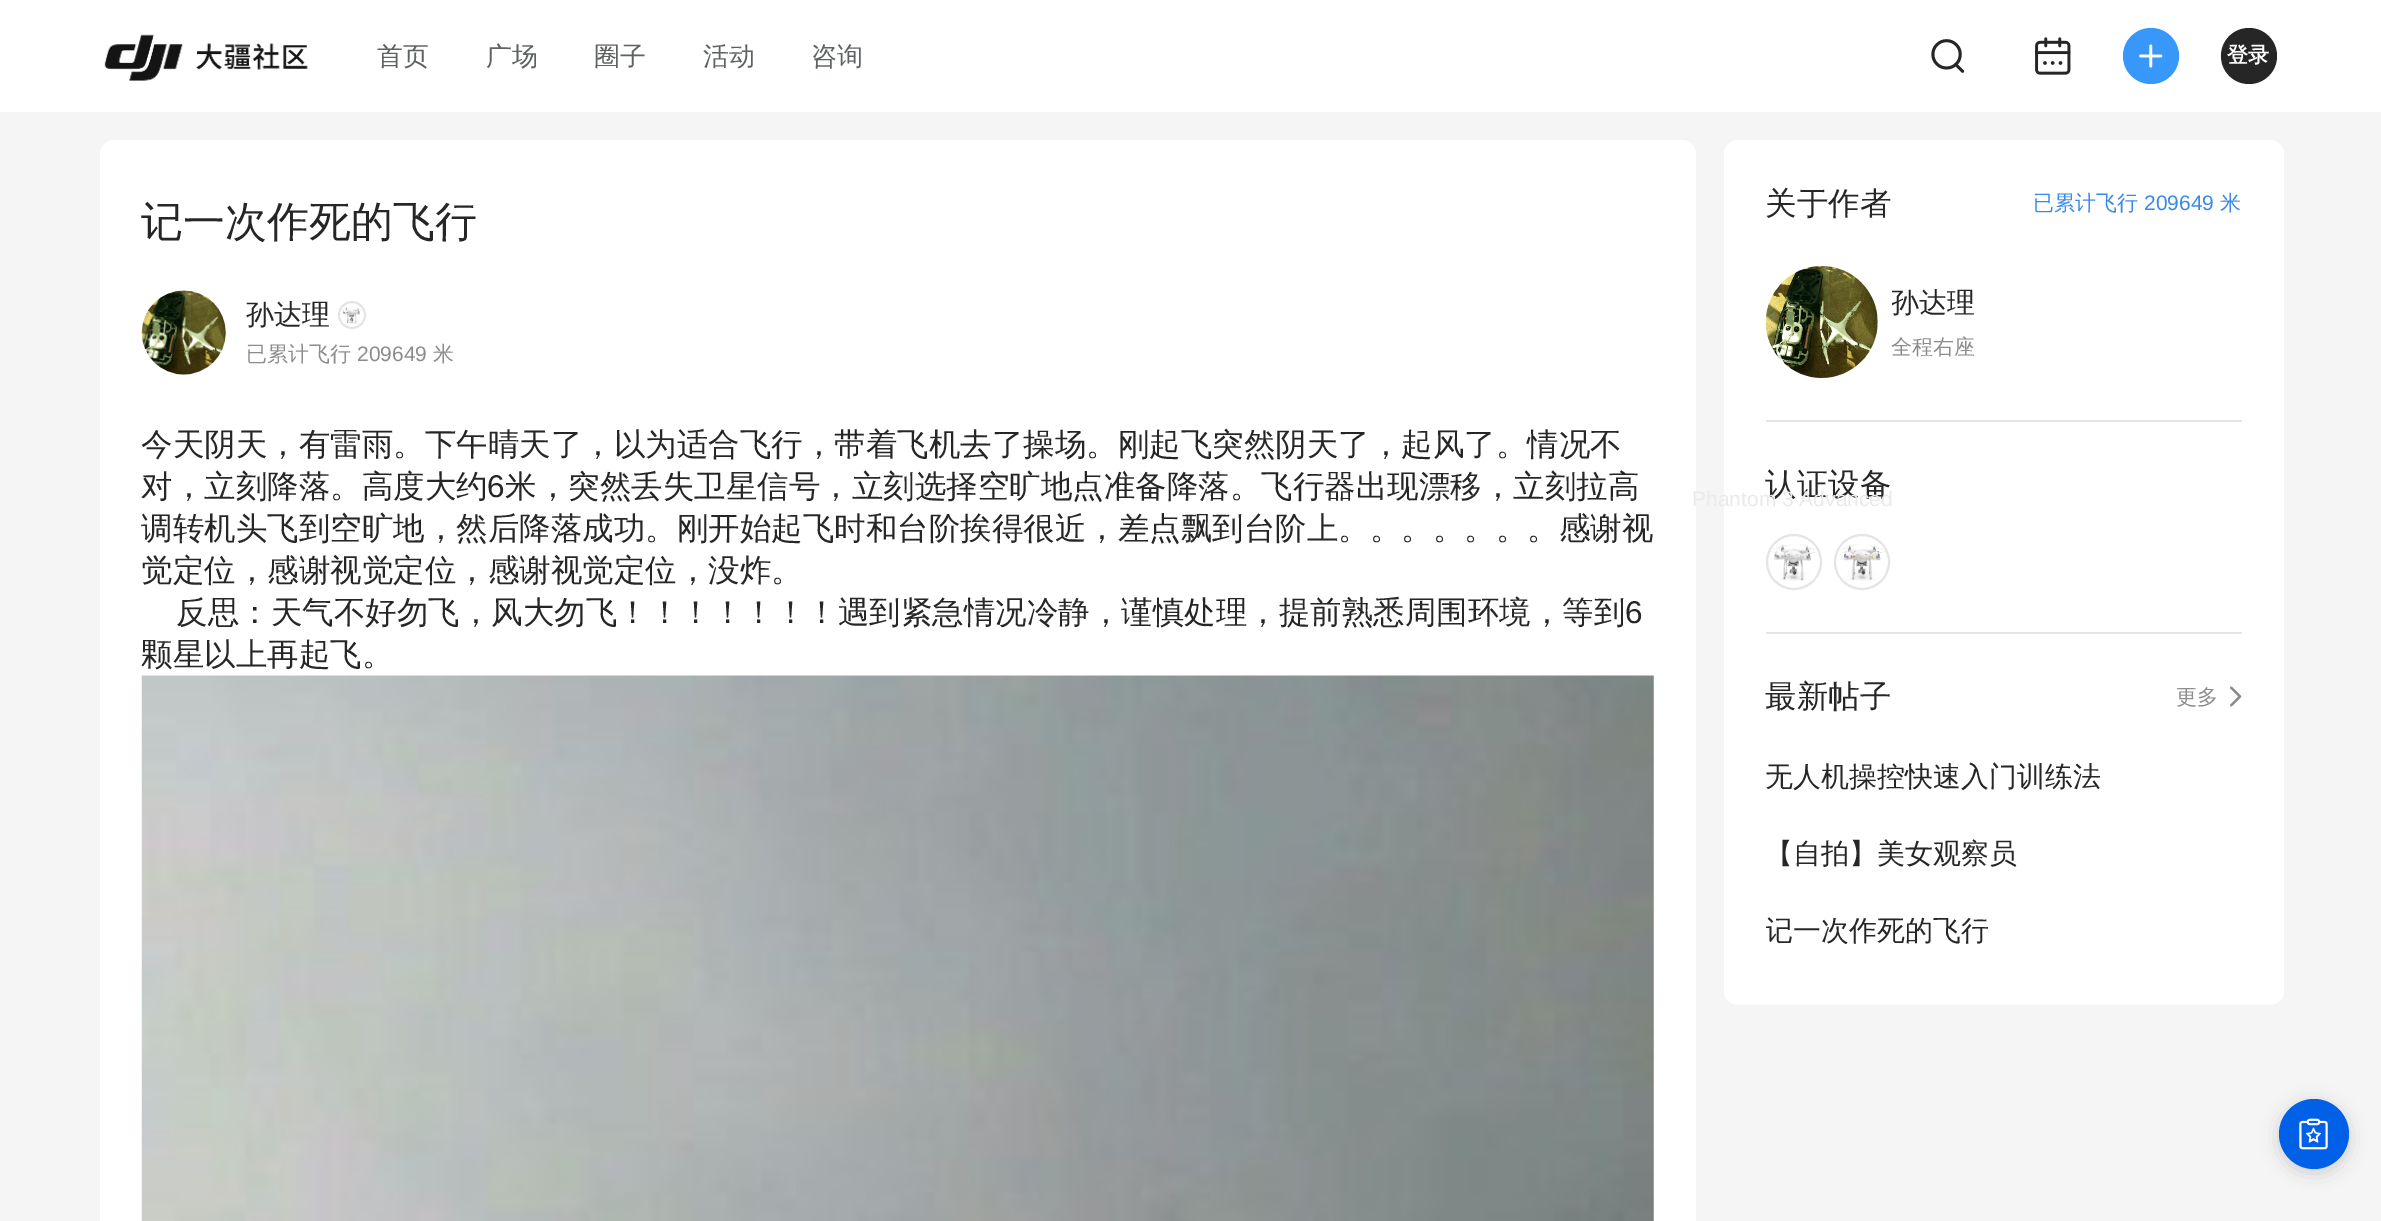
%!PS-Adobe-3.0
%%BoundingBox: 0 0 2381 1221
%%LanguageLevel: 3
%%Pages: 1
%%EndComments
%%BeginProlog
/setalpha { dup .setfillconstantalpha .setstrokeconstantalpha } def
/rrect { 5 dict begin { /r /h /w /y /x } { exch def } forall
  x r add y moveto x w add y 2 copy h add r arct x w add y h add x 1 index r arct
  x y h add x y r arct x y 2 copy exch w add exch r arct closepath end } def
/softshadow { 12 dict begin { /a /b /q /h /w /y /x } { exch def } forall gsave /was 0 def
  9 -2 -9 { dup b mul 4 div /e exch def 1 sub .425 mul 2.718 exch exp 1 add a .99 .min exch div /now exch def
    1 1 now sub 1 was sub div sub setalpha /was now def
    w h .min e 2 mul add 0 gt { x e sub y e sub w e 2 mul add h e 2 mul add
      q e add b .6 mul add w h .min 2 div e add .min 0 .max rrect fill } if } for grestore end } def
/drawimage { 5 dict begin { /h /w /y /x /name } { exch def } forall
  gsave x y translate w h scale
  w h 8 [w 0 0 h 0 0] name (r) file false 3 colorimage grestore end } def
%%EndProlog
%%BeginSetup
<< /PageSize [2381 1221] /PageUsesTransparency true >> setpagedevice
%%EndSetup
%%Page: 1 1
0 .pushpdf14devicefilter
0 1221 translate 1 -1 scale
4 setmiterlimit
0.961 setgray
0 0 2381 1221 rectfill
1 setgray
0 0 2381 112 rectfill
(images/1.raw) 104 34 204 47 drawimage
(images/2.raw) 1931 39 34 34 drawimage
(images/3.raw) 2035 37 36 38 drawimage
0.216 0.596 0.98 setrgbcolor
newpath 2151 56 28 0 360 arc closepath fill
(images/4.raw) 2139 44 24 24 drawimage
0.149 setgray
newpath 2249 56 28 0 360 arc closepath fill
1 setgray
newpath 114 140 moveto 1682 140 lineto 1689.5 140 1696 146.5 1696 154 curveto 1696 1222 lineto 100 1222 lineto 100 154 lineto 100 146.5 106.5 140 114 140 curveto closepath fill
(images/5.raw) 141 290 85 85 drawimage
0.08 setalpha
0 setgray
2 setlinewidth
newpath 184 333 41 0 360 arc closepath stroke
1 setalpha
0.894 setgray
newpath 352 315 13 0 360 arc closepath stroke
(images/6.raw) 342 307 20 17 drawimage
(images/7.raw) 141 675 1513 546 drawimage
1 setgray
1724 140 560 865 14 rrect fill
(images/8.raw) 1765 266 113 112 drawimage
0.894 setgray
1766 420 476 2 rectfill
newpath 1794 562 27 0 360 arc closepath stroke
(images/9.raw) 1771 544 46 37 drawimage
newpath 1862 562 27 0 360 arc closepath stroke
(images/10.raw) 1838 544 48 37 drawimage
1766 632 476 2 rectfill
(images/11.raw) 2230 686 12 21 drawimage
0 setgray
2279 1103 70 70 35 9 0.16 softshadow
0 0.376 0.906 setrgbcolor
newpath 2314 1134 35 0 360 arc closepath fill
(images/12.raw) 2299 1118 29 32 drawimage
/WenQuanYiZenHei-Medium [26 0 0 -26 0 0] selectfont
0.369 0.384 0.384 setrgbcolor
377 65 moveto (首页) show
486 65 moveto (广场) show
594 65 moveto (圈子) show
703 65 moveto (活动) show
811 65 moveto (咨询) show
/WenQuanYiZenHei-Bold [21 0 0 -21 0 0] selectfont
1 setgray
2227 62 moveto (登录) show
/WenQuanYiZenHei-Medium [42 0 0 -42 0 0] selectfont
0.149 setgray
141 236 moveto (记一次作死的飞行) show
/WenQuanYiZenHei-Medium [28 0 0 -28 0 0] selectfont
246 324 moveto (孙达理) show
/WenQuanYiZenHei-Medium [21 0 0 -21 0 0] selectfont
0.549 setgray
246 361 moveto (已累计飞行) show
/LiberationSans-Regular [21 0 0 -21 0 0] selectfont
357 361 moveto (209649) show
/WenQuanYiZenHei-Medium [21 0 0 -21 0 0] selectfont
433 361 moveto (米) show
/WenQuanYiZenHei-Medium [31.5 0 0 -31.5 0 0] selectfont
0.149 setgray
141 455 moveto (今天阴天，有雷雨。下午晴天了，以为适合飞行，带着飞机去了操场。刚起飞突然阴天了，起风了。情况不) show
141 497 moveto (对，立刻降落。高度大约) show
/LiberationSans-Regular [31.5 0 0 -31.5 0 0] selectfont
487 497 moveto (6) show
/WenQuanYiZenHei-Medium [31.5 0 0 -31.5 0 0] selectfont
505 497 moveto (米，突然丢失卫星信号，立刻选择空旷地点准备降落。飞行器出现漂移，立刻拉高) show
141 539 moveto (调转机头飞到空旷地，然后降落成功。刚开始起飞时和台阶挨得很近，差点飘到台阶上。。。。。。。感谢视) show
141 581 moveto (觉定位，感谢视觉定位，感谢视觉定位，没炸。) show
176 623 moveto (反思：天气不好勿飞，风大勿飞！！！！！！！遇到紧急情况冷静，谨慎处理，提前熟悉周围环境，等到) show
/LiberationSans-Regular [31.5 0 0 -31.5 0 0] selectfont
1625 623 moveto (6) show
/WenQuanYiZenHei-Medium [31.5 0 0 -31.5 0 0] selectfont
141 665 moveto (颗星以上再起飞。) show
1765 214 moveto (关于作者) show
/WenQuanYiZenHei-Medium [21 0 0 -21 0 0] selectfont
0.227 0.537 0.918 setrgbcolor
2033 210 moveto (已累计飞行) show
/LiberationSans-Regular [21 0 0 -21 0 0] selectfont
2144 210 moveto (209649) show
/WenQuanYiZenHei-Medium [21 0 0 -21 0 0] selectfont
2220 210 moveto (米) show
gsave
1892 287 350 33 rectclip
/WenQuanYiZenHei-Medium [28 0 0 -28 0 0] selectfont
0.149 setgray
1891 312 moveto (孙达理) show
grestore
0.549 setgray
1891 354 moveto (全程右座) show
/WenQuanYiZenHei-Medium [31.5 0 0 -31.5 0 0] selectfont
0.149 setgray
1765 495 moveto (认证设备) show
/LiberationSans-Regular [21 0 0 -21 0 0] selectfont
0.918 setgray
1692 506 moveto (Phantom 3 Advanced) show
/WenQuanYiZenHei-Medium [31.5 0 0 -31.5 0 0] selectfont
0.149 setgray
1765 707 moveto (最新帖子) show
/WenQuanYiZenHei-Medium [21 0 0 -21 0 0] selectfont
0.549 setgray
2176 704 moveto (更多) show
/WenQuanYiZenHei-Medium [28 0 0 -28 0 0] selectfont
0.149 setgray
1765 786 moveto (无人机操控快速入门训练法) show
1765 863 moveto (【自拍】美女观察员) show
gsave
1766 914 476 35 rectclip
1765 940 moveto (记一次作死的飞行) show
grestore
.poppdf14devicefilter showpage
%%EOF
